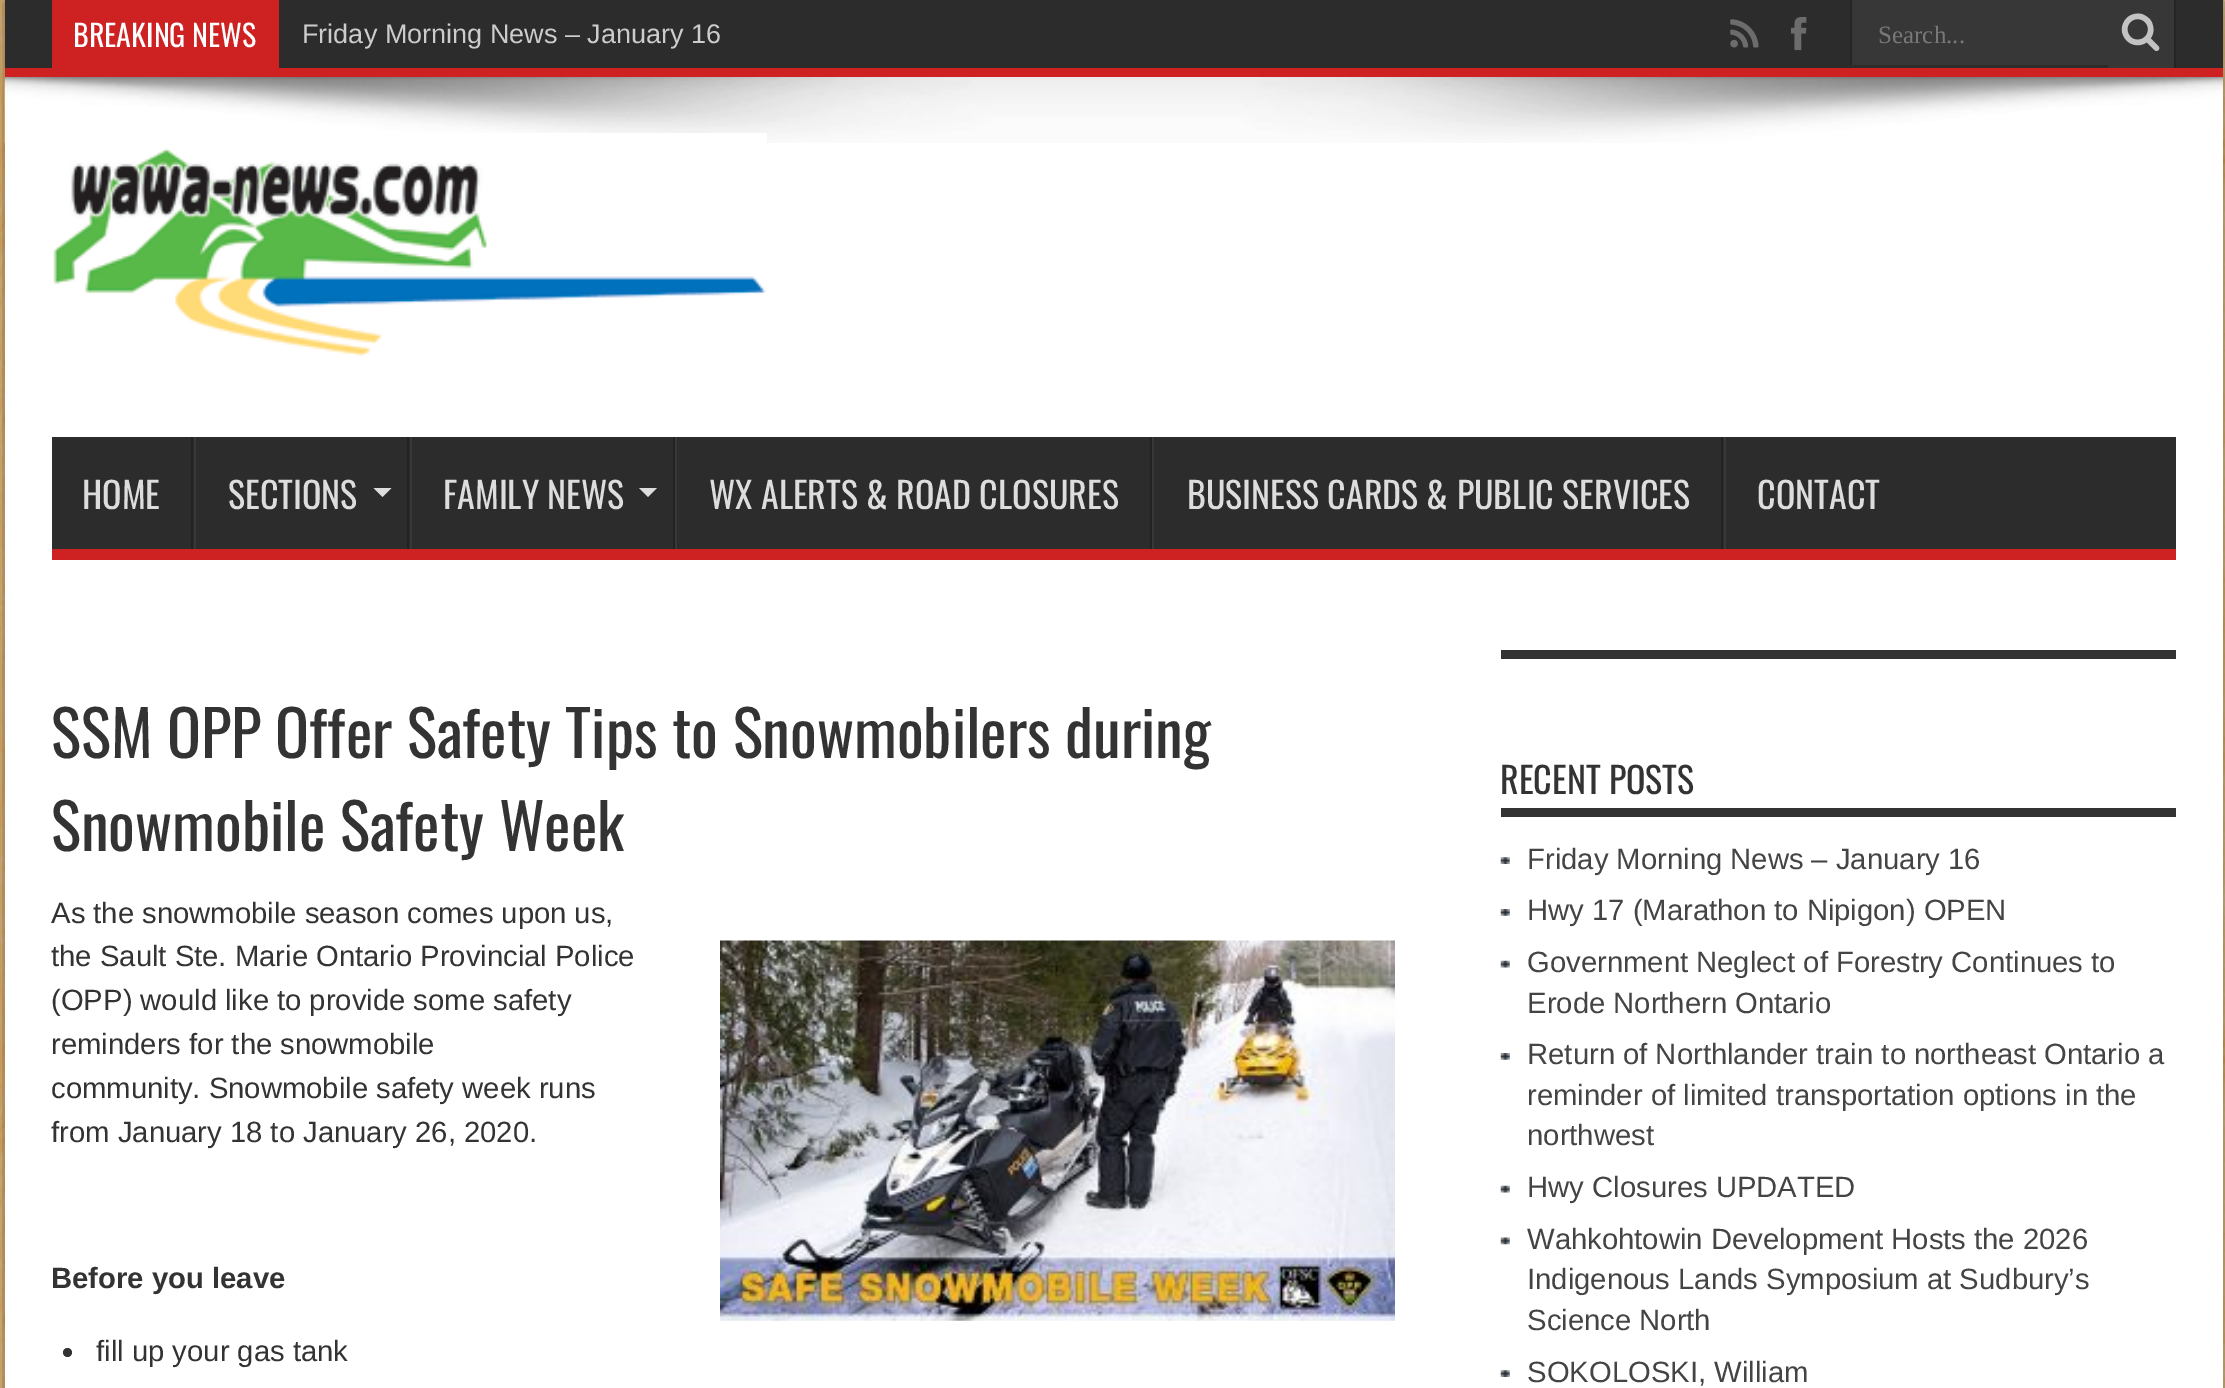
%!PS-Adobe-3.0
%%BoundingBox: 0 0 2225 1388
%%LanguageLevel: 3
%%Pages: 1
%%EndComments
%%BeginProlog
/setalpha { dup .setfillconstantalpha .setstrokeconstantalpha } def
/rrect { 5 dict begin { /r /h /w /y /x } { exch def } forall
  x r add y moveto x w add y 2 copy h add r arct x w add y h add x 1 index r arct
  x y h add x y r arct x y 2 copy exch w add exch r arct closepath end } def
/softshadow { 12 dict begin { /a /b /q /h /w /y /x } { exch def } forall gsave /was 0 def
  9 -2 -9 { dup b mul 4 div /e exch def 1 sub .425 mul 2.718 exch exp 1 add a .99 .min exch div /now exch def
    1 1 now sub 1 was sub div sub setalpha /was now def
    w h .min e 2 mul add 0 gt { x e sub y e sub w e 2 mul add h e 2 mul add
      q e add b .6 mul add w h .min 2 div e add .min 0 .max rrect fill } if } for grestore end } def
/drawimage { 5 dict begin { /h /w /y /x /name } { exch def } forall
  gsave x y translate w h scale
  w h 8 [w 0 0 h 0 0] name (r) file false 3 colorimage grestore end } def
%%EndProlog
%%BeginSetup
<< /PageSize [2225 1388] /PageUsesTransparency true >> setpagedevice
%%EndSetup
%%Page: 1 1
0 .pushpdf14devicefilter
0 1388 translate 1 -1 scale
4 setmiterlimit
1 setgray
0 0 2225 1388 rectfill
(images/1.raw) 0 0 2225 1388 drawimage
0 setgray
5 0 2218 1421 0 11 0.5 softshadow
1 setgray
5 77 2218 1311 rectfill
0.173 setgray
5 0 2218 68 rectfill
(images/5.raw) 4 76 2219 67 drawimage
0.804 0.129 0.133 setrgbcolor
5 68 2218 9 rectfill
52 0 227 68 rectfill
(images/2.raw) 1730 19 29 29 drawimage
(images/3.raw) 1791 17 16 34 drawimage
0.216 setgray
1852 0 256 65 rectfill
0.145 setgray
1850 0 2 65 rectfill
0.216 setgray
2108 0 66 68 rectfill
0.145 setgray
2174 0 2 68 rectfill
(images/4.raw) 2121 13 39 38 drawimage
(images/6.raw) 53 133 714 223 drawimage
0.173 setgray
52 437 2124 112 rectfill
0.804 0.129 0.133 setrgbcolor
52 549 2124 11 rectfill
0.133 setgray
191 437 2 112 rectfill
0.22 setgray
194 437 2 112 rectfill
0.867 setgray
newpath 373.5 488 moveto 391.5 488 lineto 382.5 497 lineto closepath fill
0.133 setgray
407 437 2 112 rectfill
0.22 setgray
410 437 2 112 rectfill
0.867 setgray
newpath 639 488 moveto 657 488 lineto 648 497 lineto closepath fill
0.133 setgray
673 437 2 112 rectfill
0.22 setgray
675 437 2 112 rectfill
0.133 setgray
1150 437 2 112 rectfill
0.22 setgray
1152 437 2 112 rectfill
0.133 setgray
1721 437 2 112 rectfill
0.22 setgray
1724 437 2 112 rectfill
(images/7.raw) 720 940 675 381 drawimage
0.2 setgray
newpath 67.5 1352.5 4.5 0 360 arc closepath fill
1501 650 675 9 rectfill
1501 808 675 9 rectfill
(images/8.raw) 1500 857 10 7 drawimage
(images/9.raw) 1500 909 10 7 drawimage
(images/10.raw) 1500 960 10 8 drawimage
(images/9.raw) 1500 1053 10 7 drawimage
(images/10.raw) 1500 1185 10 8 drawimage
(images/11.raw) 1500 1237 10 8 drawimage
(images/8.raw) 1500 1370 10 7 drawimage
/Oswald-Regular [30 0 0 -30 0 0] selectfont
1 setgray
73 47 moveto (BREAKING NEWS) show
/LiberationSans-Regular [27 0 0 -27 0 0] selectfont
0.8 setgray
302 43 moveto (Friday Morning News – January 16) show
/LiberationSerif-Regular [25 0 0 -25 0 0] selectfont
0.471 setgray
1878 43 moveto (Search...) show
/Oswald-Regular [36 0 0 -36 0 0] selectfont
0.867 setgray
82 509 moveto (HOME) show
228 509 moveto (SECTIONS) show
443 509 moveto (FAMILY NEWS) show
709 509 moveto (WX ALERTS & ROAD CLOSURES) show
1187 509 moveto (BUSINESS CARDS & PUBLIC SERVICES) show
1757 509 moveto (CONTACT) show
/Oswald-Regular [63 0 0 -63 0 0] selectfont
0.2 setgray
51 758 moveto (SSM OPP Offer Safety Tips to Snowmobilers during) show
51 851 moveto (Snowmobile Safety Week) show
/LiberationSans-Regular [29.25 0 0 -29.25 0 0] selectfont
51 923 moveto (As the snowmobile season comes upon us,) show
51 966 moveto (the Sault Ste. Marie Ontario Provincial Police) show
51 1010 moveto (\(OPP\) would like to provide some safety) show
51 1054 moveto (reminders for the snowmobile) show
51 1098 moveto (community. Snowmobile safety week runs) show
51 1142 moveto (from January 18 to January 26, 2020.) show
/LiberationSans-Bold [29.25 0 0 -29.25 0 0] selectfont
51 1288 moveto (Before you leave) show
/LiberationSans-Regular [29.25 0 0 -29.25 0 0] selectfont
96 1361 moveto (fill up your gas tank) show
/Oswald-Regular [36 0 0 -36 0 0] selectfont
1500 794 moveto (RECENT POSTS) show
/LiberationSans-Regular [29.25 0 0 -29.25 0 0] selectfont
0.267 setgray
1527 869 moveto (Friday Morning News – January 16) show
1527 920 moveto (Hwy 17 \(Marathon to Nipigon\) OPEN) show
1527 972 moveto (Government Neglect of Forestry Continues to) show
1527 1013 moveto (Erode Northern Ontario) show
1527 1064 moveto (Return of Northlander train to northeast Ontario a) show
1527 1105 moveto (reminder of limited transportation options in the) show
1527 1145 moveto (northwest) show
1527 1197 moveto (Hwy Closures UPDATED) show
1527 1249 moveto (Wahkohtowin Development Hosts the 2026) show
1527 1289 moveto (Indigenous Lands Symposium at Sudbury’s) show
1527 1330 moveto (Science North) show
1527 1382 moveto (SOKOLOSKI, William) show
.poppdf14devicefilter showpage
%%EOF
